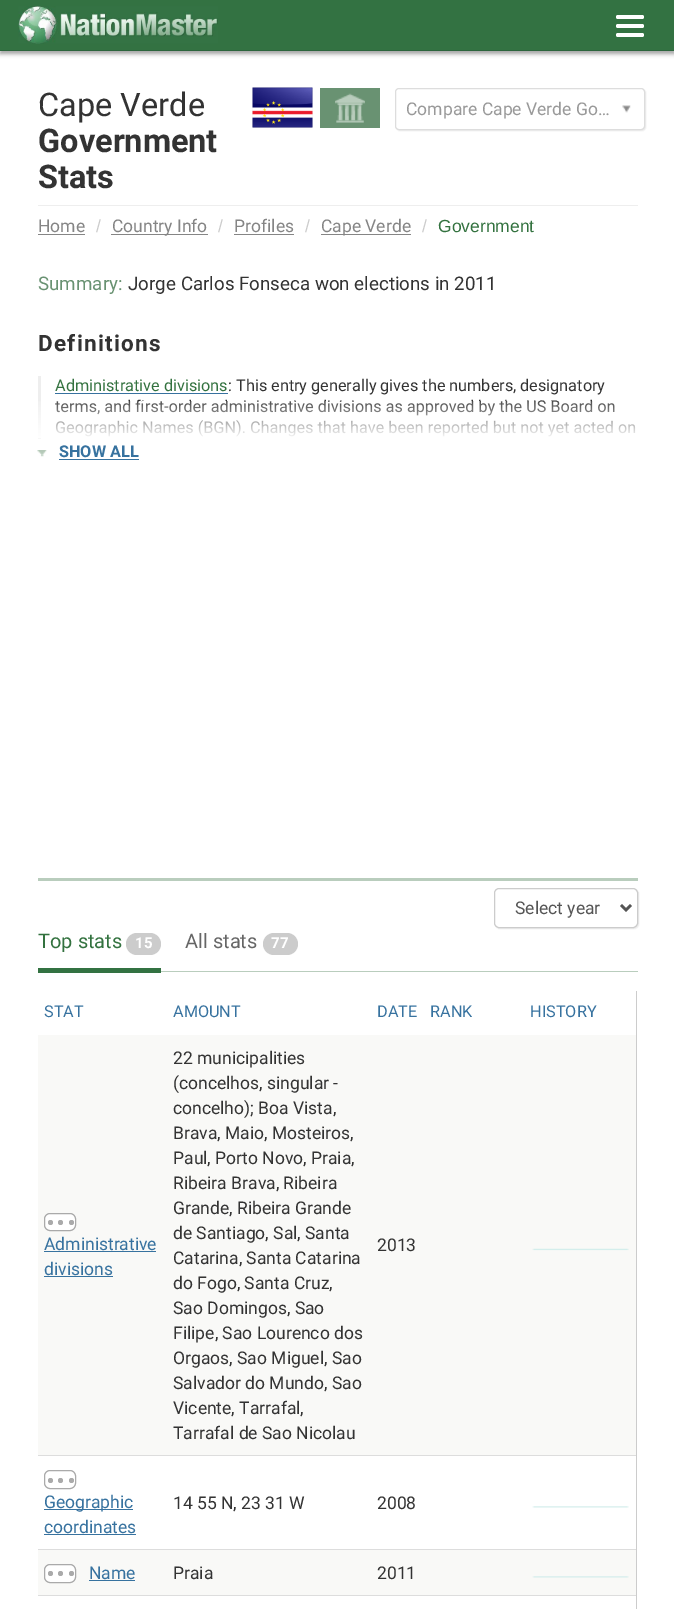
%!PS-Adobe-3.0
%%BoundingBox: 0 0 674 1609
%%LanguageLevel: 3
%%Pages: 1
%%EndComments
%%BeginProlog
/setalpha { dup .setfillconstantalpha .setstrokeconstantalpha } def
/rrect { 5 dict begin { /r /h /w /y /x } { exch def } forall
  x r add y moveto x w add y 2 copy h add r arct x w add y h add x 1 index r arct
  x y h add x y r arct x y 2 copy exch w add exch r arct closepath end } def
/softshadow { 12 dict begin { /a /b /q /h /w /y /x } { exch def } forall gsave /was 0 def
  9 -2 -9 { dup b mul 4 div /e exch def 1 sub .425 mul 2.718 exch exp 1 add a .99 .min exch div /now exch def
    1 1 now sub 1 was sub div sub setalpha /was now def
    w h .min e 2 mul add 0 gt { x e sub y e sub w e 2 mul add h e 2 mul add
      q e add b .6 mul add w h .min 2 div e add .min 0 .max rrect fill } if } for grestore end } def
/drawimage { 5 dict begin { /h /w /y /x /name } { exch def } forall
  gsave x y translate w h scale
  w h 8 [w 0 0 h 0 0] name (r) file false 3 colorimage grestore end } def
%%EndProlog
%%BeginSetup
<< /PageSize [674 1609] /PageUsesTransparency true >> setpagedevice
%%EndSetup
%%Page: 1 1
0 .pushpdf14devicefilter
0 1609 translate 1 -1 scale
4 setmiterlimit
1 setgray
0 0 674 1609 rectfill
0 setgray
0 3 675 51 0 2 0.35 softshadow
0.2 0.447 0.259 setrgbcolor
0 0 674 50 rectfill
0.173 0.396 0.239 setrgbcolor
0 50 674 1 rectfill
(images/1.raw) 18 6 200 38 drawimage
1 setgray
616 15 28 4 2 rrect fill
616 24 28 4 2 rrect fill
616 33 28 4 2 rrect fill
0.933 setgray
38 205 600 1 rectfill
(images/2.raw) 252 87 61 41 drawimage
0.412 0.573 0.447 setrgbcolor
320 88 60 40 rectfill
(images/3.raw) 335 93 30 30 drawimage
gsave
newpath 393 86 moveto 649 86 lineto 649 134 lineto 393 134 lineto closepath 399 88 moveto 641 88 lineto 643 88 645 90 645 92 curveto 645 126 lineto 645 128 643 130 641 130 curveto 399 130 lineto 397 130 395 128 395 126 curveto 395 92 lineto 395 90 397 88 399 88 curveto closepath eoclip newpath
0 setgray
396 89 250 42 4 0.5 0.08 softshadow
grestore
0.867 setgray
395.5 88.5 249 41 3.5 rrect stroke
(images/4.raw) 622 105 9 8 drawimage
0.522 setgray
38 234 47 1 rectfill
111 234 97 1 rectfill
234 234 60 1 rectfill
321 234 90 1 rectfill
0.933 setgray
38 376 3 63 rectfill
0.216 0.447 0.624 setrgbcolor
55 393 173 1 rectfill
(images/6.raw) 37 450 10 7 drawimage
59 459 80 1 rectfill
0.725 0.804 0.741 setrgbcolor
38 878 600 3 rectfill
161 971 477 1 rectfill
0 setgray
495 889 144 40 5 0.5 0.08 softshadow
1 setgray
494.5 888.5 143 39 4.5 rrect gsave fill grestore
0.8 setgray
stroke
0.333 setgray
2.5 setlinewidth
newpath 621 905 moveto 626 910 lineto 631 905 lineto stroke
0.2 0.447 0.259 setrgbcolor
38 968 123 5 rectfill
0.8 setgray
126 933 35 22 11 rrect fill
263 933 35 22 11 rrect fill
636 991 1 618 rectfill
0.976 0.976 0.969 setrgbcolor
38 1035 598 420 rectfill
1 setgray
44.5 1213.5 31 17 5.5 rrect gsave fill grestore
0.667 setgray
1 setlinewidth
stroke
newpath 50.5 1222.5 2.5 0 360 arc closepath fill
newpath 60.5 1222.5 2.5 0 360 arc closepath fill
newpath 71.5 1222.5 2.5 0 360 arc closepath fill
0.216 0.447 0.624 setrgbcolor
44 1251 112 1 rectfill
44 1276 69 1 rectfill
(images/7.raw) 532 1248 97 3 drawimage
0.867 setgray
38 1455 598 1 rectfill
(images/8.raw) 532 1506 97 2 drawimage
0.667 setgray
44.5 1470.5 31 18 5.5 rrect stroke
newpath 50.5 1480.5 2.5 0 360 arc closepath fill
newpath 60.5 1480.5 2.5 0 360 arc closepath fill
newpath 71.5 1480.5 2.5 0 360 arc closepath fill
0.216 0.447 0.624 setrgbcolor
44 1509 89 1 rectfill
44 1534 92 1 rectfill
0.976 0.976 0.969 setrgbcolor
38 1550 598 45 rectfill
0.867 setgray
38 1549 598 1 rectfill
(images/9.raw) 532 1576 97 2 drawimage
1 setgray
44.5 1564.5 31 18 5.5 rrect gsave fill grestore
0.667 setgray
stroke
newpath 50.5 1573.5 2.5 0 360 arc closepath fill
newpath 60.5 1573.5 2.5 0 360 arc closepath fill
newpath 71.5 1573.5 2.5 0 360 arc closepath fill
0.216 0.447 0.624 setrgbcolor
89 1580 46 1 rectfill
0.867 setgray
38 1595 598 1 rectfill
/Roboto-Regular [32.5 0 0 -32.5 0 0] selectfont
0.2 setgray
38 116 moveto (Cape Verde) show
/Roboto-Bold [32.5 0 0 -32.5 0 0] selectfont
38 152 moveto (Government) show
38 188 moveto (Stats) show
/Roboto-Regular [17.5 0 0 -17.5 0 0] selectfont
0.6 setgray
406 115 moveto (Compare Cape Verde Go…) show
0.522 setgray
38 232 moveto (Home) show
/LiberationSans-Regular [17.5 0 0 -17.5 0 0] selectfont
0.8 setgray
96 232 moveto (/) show
/Roboto-Regular [17.5 0 0 -17.5 0 0] selectfont
0.522 setgray
112 232 moveto (Country Info) show
/LiberationSans-Regular [17.5 0 0 -17.5 0 0] selectfont
0.8 setgray
218 232 moveto (/) show
/Roboto-Regular [17.5 0 0 -17.5 0 0] selectfont
0.522 setgray
234 232 moveto (Profiles) show
/LiberationSans-Regular [17.5 0 0 -17.5 0 0] selectfont
0.8 setgray
305 232 moveto (/) show
/Roboto-Regular [17.5 0 0 -17.5 0 0] selectfont
0.522 setgray
321 232 moveto (Cape Verde) show
/LiberationSans-Regular [17.5 0 0 -17.5 0 0] selectfont
0.8 setgray
422 232 moveto (/) show
0.2 0.447 0.247 setrgbcolor
438 232 moveto (Government) show
/Roboto-Regular [18.75 0 0 -18.75 0 0] selectfont
0.412 0.573 0.447 setrgbcolor
38 290 moveto (Summary:) show
0.2 setgray
128 290 moveto (Jorge Carlos Fonseca won elections in 2011) show
/Roboto-Bold [22.5 0 0 -22.5 0 0] selectfont
38 351 moveto 1.25 0 (Definitions) ashow
/Roboto-Regular [16.25 0 0 -16.25 0 0] selectfont
0.2 0.447 0.247 setrgbcolor
55 391 moveto (Administrative divisions) show
0.2 setgray
228 391 moveto (: This entry generally gives the numbers, designatory) show
55 412 moveto (terms, and first-order administrative divisions as approved by the US Board on) show
(images/5.raw) 38 401 598 38 drawimage
/Roboto-Bold [16.25 0 0 -16.25 0 0] selectfont
0.216 0.447 0.624 setrgbcolor
59 457 moveto (SHOW ALL) show
/Roboto-Regular [17.5 0 0 -17.5 0 0] selectfont
0.333 setgray
515 914 moveto (Select year) show
/Roboto-Regular [20 0 0 -20 0 0] selectfont
0.2 0.447 0.247 setrgbcolor
38 948 moveto (Top stats) show
/Roboto-Bold [15 0 0 -15 0 0] selectfont
1 setgray
135 948 moveto (15) show
/Roboto-Regular [20 0 0 -20 0 0] selectfont
0.4 setgray
185 948 moveto (All stats) show
/Roboto-Bold [15 0 0 -15 0 0] selectfont
1 setgray
271 948 moveto (77) show
/Roboto-Regular [16.25 0 0 -16.25 0 0] selectfont
0.216 0.447 0.624 setrgbcolor
44 1017 moveto (STAT) show
173 1017 moveto (AMOUNT) show
377 1017 moveto (DATE) show
430 1017 moveto (RANK) show
530 1017 moveto (HISTORY) show
/Roboto-Regular [17.5 0 0 -17.5 0 0] selectfont
44 1250 moveto (Administrative) show
44 1275 moveto (divisions) show
0.2 setgray
173 1064 moveto (22 municipalities) show
173 1089 moveto (\(concelhos, singular -) show
173 1114 moveto (concelho\); Boa Vista,) show
173 1139 moveto (Brava, Maio, Mosteiros,) show
173 1164 moveto (Paul, Porto Novo, Praia,) show
173 1189 moveto (Ribeira Brava, Ribeira) show
173 1214 moveto (Grande, Ribeira Grande) show
173 1239 moveto (de Santiago, Sal, Santa) show
173 1264 moveto (Catarina, Santa Catarina) show
173 1289 moveto (do Fogo, Santa Cruz,) show
173 1314 moveto (Sao Domingos, Sao) show
173 1339 moveto (Filipe, Sao Lourenco dos) show
173 1364 moveto (Orgaos, Sao Miguel, Sao) show
173 1389 moveto (Salvador do Mundo, Sao) show
173 1414 moveto (Vicente, Tarrafal,) show
173 1439 moveto (Tarrafal de Sao Nicolau) show
377 1251 moveto (2013) show
0.216 0.447 0.624 setrgbcolor
44 1508 moveto (Geographic) show
44 1533 moveto (coordinates) show
0.2 setgray
173 1509 moveto (14 55 N, 23 31 W) show
377 1509 moveto (2008) show
0.216 0.447 0.624 setrgbcolor
89 1579 moveto (Name) show
0.2 setgray
173 1579 moveto (Praia) show
377 1579 moveto (2011) show
.poppdf14devicefilter showpage
%%EOF
